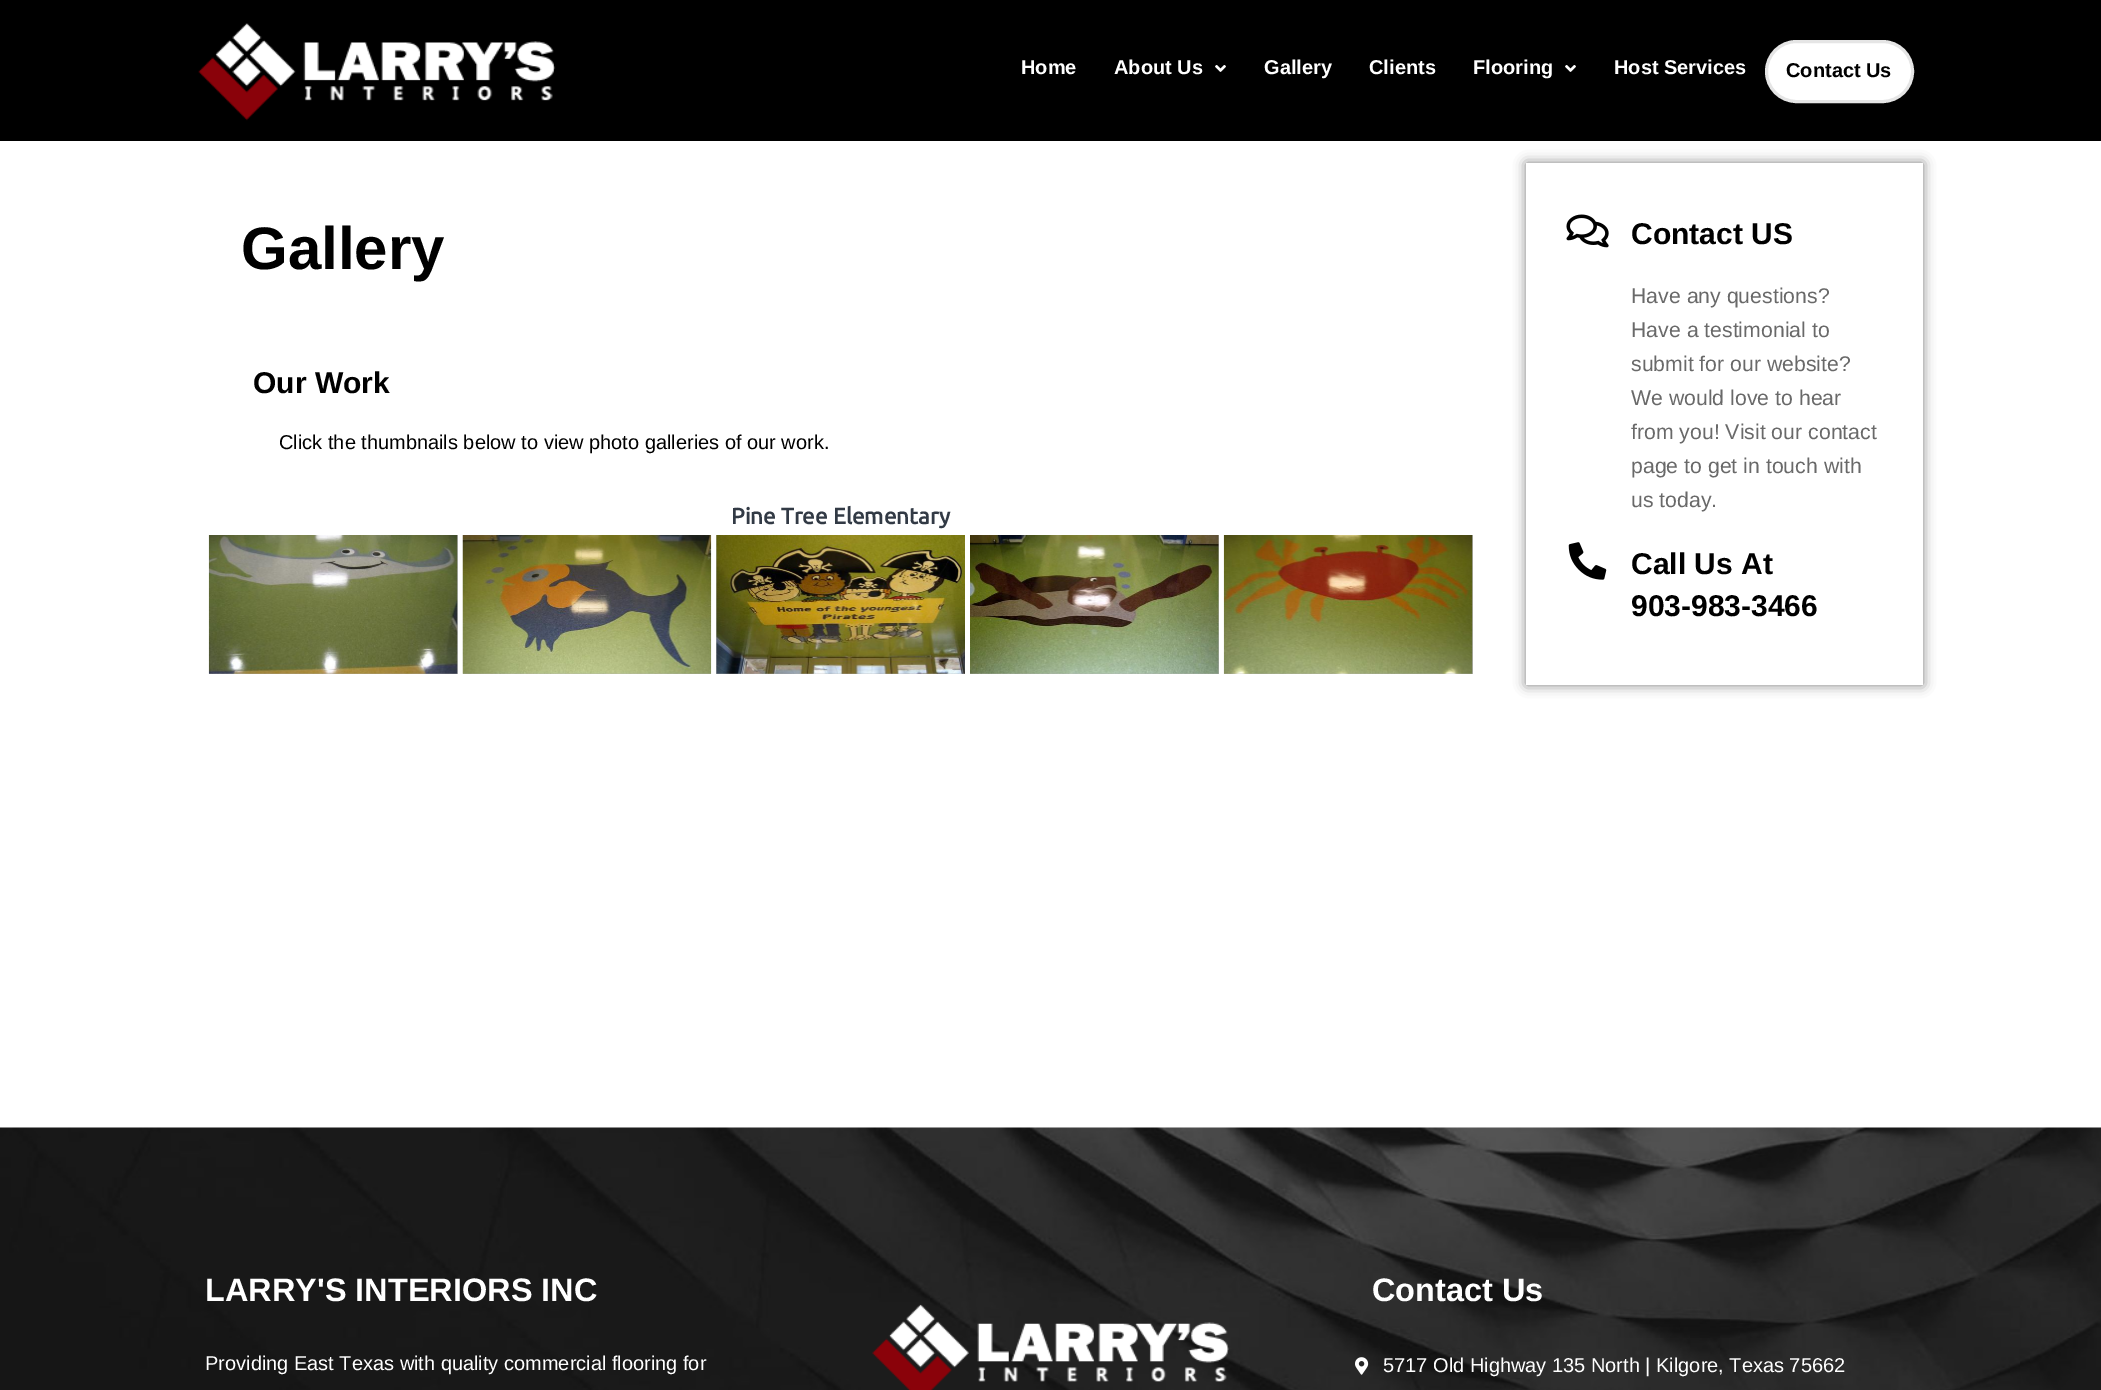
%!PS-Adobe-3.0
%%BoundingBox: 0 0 2101 1390
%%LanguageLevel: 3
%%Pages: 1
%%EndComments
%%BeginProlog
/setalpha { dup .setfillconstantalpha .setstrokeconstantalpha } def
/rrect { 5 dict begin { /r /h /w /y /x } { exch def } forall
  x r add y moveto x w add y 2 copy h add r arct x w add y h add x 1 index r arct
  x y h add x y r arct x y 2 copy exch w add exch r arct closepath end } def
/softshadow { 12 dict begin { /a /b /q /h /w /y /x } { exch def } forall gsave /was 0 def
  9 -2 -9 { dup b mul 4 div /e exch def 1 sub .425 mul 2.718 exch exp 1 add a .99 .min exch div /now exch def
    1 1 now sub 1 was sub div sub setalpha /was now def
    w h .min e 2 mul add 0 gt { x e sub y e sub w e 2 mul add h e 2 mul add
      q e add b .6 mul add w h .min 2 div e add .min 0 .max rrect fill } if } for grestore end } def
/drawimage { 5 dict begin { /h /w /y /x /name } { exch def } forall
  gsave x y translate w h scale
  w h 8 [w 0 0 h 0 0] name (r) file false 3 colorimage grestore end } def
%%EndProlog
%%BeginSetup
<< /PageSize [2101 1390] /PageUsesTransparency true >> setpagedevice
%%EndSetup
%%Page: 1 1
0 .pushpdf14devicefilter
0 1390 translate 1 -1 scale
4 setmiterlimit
1 setgray
0 0 2101 1390 rectfill
0 setgray
0 0 2101 141 rectfill
(images/1.raw) 198 23 358 98 drawimage
(images/2.raw) 1215 65 11 7 drawimage
(images/2.raw) 1565 65 11 7 drawimage
1 setgray
1766.5 41.5 146 60 30 rrect gsave fill grestore
0.898 setgray
3 setlinewidth
stroke
0.702 setgray
209 535 249 139 rectfill
(images/3.raw) 208 535 250 139 drawimage
(images/4.raw) 462 535 250 139 drawimage
716 535 249 139 rectfill
(images/5.raw) 716 535 249 139 drawimage
970 535 249 139 rectfill
(images/6.raw) 970 535 249 139 drawimage
1224 535 249 139 rectfill
(images/7.raw) 1223 535 250 139 drawimage
0 setgray
1526 163 397 522 0 6 0.5 softshadow
1 setgray
1526 163 397 522 rectfill
(images/8.raw) 1566 214 43 34 drawimage
(images/9.raw) 1568 542 39 38 drawimage
(images/10.raw) 0 1127 2101 263 drawimage
(images/11.raw) 872 1304 357 86 drawimage
(images/12.raw) 1355 1357 14 18 drawimage
/LiberationSans-Bold [20 0 0 -20 0 0] selectfont
1021 74 moveto (Home) show
1114 74 moveto (About Us) show
1264 74 moveto (Gallery) show
1369 74 moveto (Clients) show
1473 74 moveto (Flooring) show
1614 74 moveto (Host Services) show
0 setgray
1786 77 moveto (Contact Us) show
/LiberationSans-Bold [60 0 0 -60 0 0] selectfont
241 269 moveto (Gallery) show
/LiberationSans-Bold [30 0 0 -30 0 0] selectfont
253 393 moveto (Our Work) show
/LiberationSans-Regular [20 0 0 -20 0 0] selectfont
279 449 moveto (Click the thumbnails below to view photo galleries of our work.) show
/Ubuntu-Bold [22.5 0 0 -22.5 0 0] selectfont
0.196 0.227 0.271 setrgbcolor
731 524 moveto (Pine Tree Elementary) show
/LiberationSans-Bold [30 0 0 -30 0 0] selectfont
0 setgray
1631 244 moveto (Contact US) show
/LiberationSans-Regular [21.25 0 0 -21.25 0 0] selectfont
0.412 setgray
1631 303 moveto (Have any questions?) show
1631 337 moveto (Have a testimonial to) show
1631 371 moveto (submit for our website?) show
1631 405 moveto (We would love to hear) show
1631 439 moveto (from you! Visit our contact) show
1631 473 moveto (page to get in touch with) show
1631 507 moveto (us today.) show
/LiberationSans-Bold [30 0 0 -30 0 0] selectfont
0 setgray
1631 574 moveto (Call Us At) show
1631 616 moveto (903-983-3466) show
/LiberationSans-Bold [32.5 0 0 -32.5 0 0] selectfont
1 setgray
205 1301 moveto (LARRY'S INTERIORS INC) show
/LiberationSans-Regular [20 0 0 -20 0 0] selectfont
205 1370 moveto (Providing East Texas with quality commercial flooring for) show
/LiberationSans-Bold [32.5 0 0 -32.5 0 0] selectfont
1372 1301 moveto (Contact Us) show
/LiberationSans-Regular [20 0 0 -20 0 0] selectfont
1383 1372 moveto (5717 Old Highway 135 North | Kilgore, Texas 75662) show
.poppdf14devicefilter showpage
%%EOF
